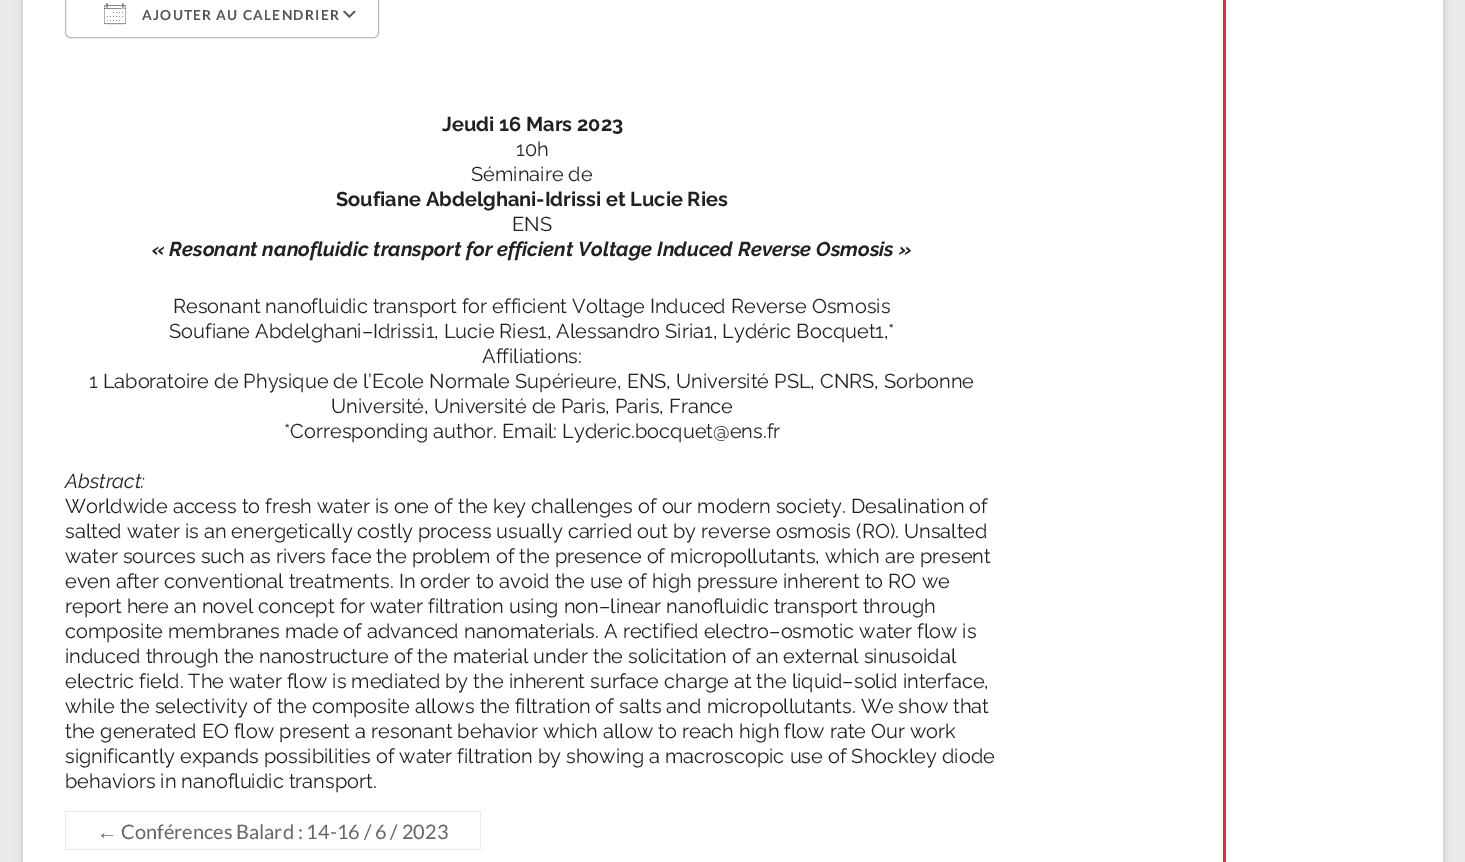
%!PS-Adobe-3.0
%%BoundingBox: 0 0 1465 862
%%LanguageLevel: 3
%%Pages: 1
%%EndComments
%%BeginProlog
/setalpha { dup .setfillconstantalpha .setstrokeconstantalpha } def
/rrect { 5 dict begin { /r /h /w /y /x } { exch def } forall
  x r add y moveto x w add y 2 copy h add r arct x w add y h add x 1 index r arct
  x y h add x y r arct x y 2 copy exch w add exch r arct closepath end } def
/softshadow { 12 dict begin { /a /b /q /h /w /y /x } { exch def } forall gsave /was 0 def
  9 -2 -9 { dup b mul 4 div /e exch def 1 sub .425 mul 2.718 exch exp 1 add a .99 .min exch div /now exch def
    1 1 now sub 1 was sub div sub setalpha /was now def
    w h .min e 2 mul add 0 gt { x e sub y e sub w e 2 mul add h e 2 mul add
      q e add b .6 mul add w h .min 2 div e add .min 0 .max rrect fill } if } for grestore end } def
/drawimage { 5 dict begin { /h /w /y /x /name } { exch def } forall
  gsave x y translate w h scale
  w h 8 [w 0 0 h 0 0] name (r) file false 3 colorimage grestore end } def
%%EndProlog
%%BeginSetup
<< /PageSize [1465 862] /PageUsesTransparency true >> setpagedevice
%%EndSetup
%%Page: 1 1
0 .pushpdf14devicefilter
0 862 translate 1 -1 scale
4 setmiterlimit
0.918 setgray
0 0 1465 862 rectfill
0.392 setgray
23 -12 1420 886 0 4 0.3 softshadow
1 setgray
23 0 1420 862 rectfill
(images/1.raw) 342 10 14 8 drawimage
0.729 setgray
65.5 -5.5 313 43 4.5 rrect stroke
(images/2.raw) 104 3 22 22 drawimage
0.918 setgray
65 849 53 1 rectfill
65 811 416 1 rectfill
65 811 1 39 rectfill
480 811 1 39 rectfill
118 849 363 1 rectfill
0.867 0.2 0.2 setrgbcolor
1223 0 3 862 rectfill
/Lato-Bold [13.75 0 0 -13.75 0 0] selectfont
0.329 setgray
142 20 moveto 1.25 0 (AJOUTER AU CALENDRIER) ashow
/Raleway-Bold [20 0 0 -20 0 0] selectfont
0.129 setgray
442 131 moveto (Jeudi 16 Mars 2023) show
/Raleway-Regular [20 0 0 -20 0 0] selectfont
516 156 moveto (10h) show
471 181 moveto (Séminaire de) show
/Raleway-Bold [20 0 0 -20 0 0] selectfont
336 206 moveto (Soufiane Abdelghani-Idrissi et Lucie Ries) show
/Raleway-Regular [20 0 0 -20 0 0] selectfont
512 231 moveto (ENS) show
/Raleway-BoldItalic [20 0 0 -20 0 0] selectfont
152 256 moveto (« Resonant nanofluidic transport for efficient Voltage Induced Reverse Osmosis ») show
/Raleway-Regular [20 0 0 -20 0 0] selectfont
173 313 moveto (Resonant nanofluidic transport for efficient Voltage Induced Reverse Osmosis) show
169 338 moveto (Soufiane Abdelghani–Idrissi1, Lucie Ries1, Alessandro Siria1, Lydéric Bocquet1,*) show
482 363 moveto (Affiliations:) show
89 388 moveto (1 Laboratoire de Physique de l’Ecole Normale Supérieure, ENS, Université PSL, CNRS, Sorbonne) show
331 413 moveto (Université, Université de Paris, Paris, France) show
284 438 moveto (*Corresponding author. Email: Lyderic.bocquet@ens.fr) show
/Raleway-Italic [20 0 0 -20 0 0] selectfont
65 488 moveto (Abstract:) show
/Raleway-Regular [20 0 0 -20 0 0] selectfont
65 513 moveto (Worldwide access to fresh water is one of the key challenges of our modern society. Desalination of) show
65 538 moveto (salted water is an energetically costly process usually carried out by reverse osmosis \(RO\). Unsalted) show
65 563 moveto (water sources such as rivers face the problem of the presence of micropollutants, which are present) show
65 588 moveto (even after conventional treatments. In order to avoid the use of high pressure inherent to RO we) show
65 613 moveto (report here an novel concept for water filtration using non–linear nanofluidic transport through) show
65 638 moveto (composite membranes made of advanced nanomaterials. A rectified electro–osmotic water flow is) show
65 663 moveto (induced through the nanostructure of the material under the solicitation of an external sinusoidal) show
65 688 moveto (electric field. The water flow is mediated by the inherent surface charge at the liquid–solid interface,) show
65 713 moveto (while the selectivity of the composite allows the filtration of salts and micropollutants. We show that) show
65 738 moveto (the generated EO flow present a resonant behavior which allow to reach high flow rate Our work) show
65 763 moveto (significantly expands possibilities of water filtration by showing a macroscopic use of Shockley diode) show
65 788 moveto (behaviors in nanofluidic transport.) show
/LiberationSans-Regular [20 0 0 -20 0 0] selectfont
0.4 setgray
97 839 moveto (←) show
/Lato-Regular [20 0 0 -20 0 0] selectfont
121 839 moveto (Conférences Balard : 14-16 / 6 / 2023) show
.poppdf14devicefilter showpage
%%EOF
